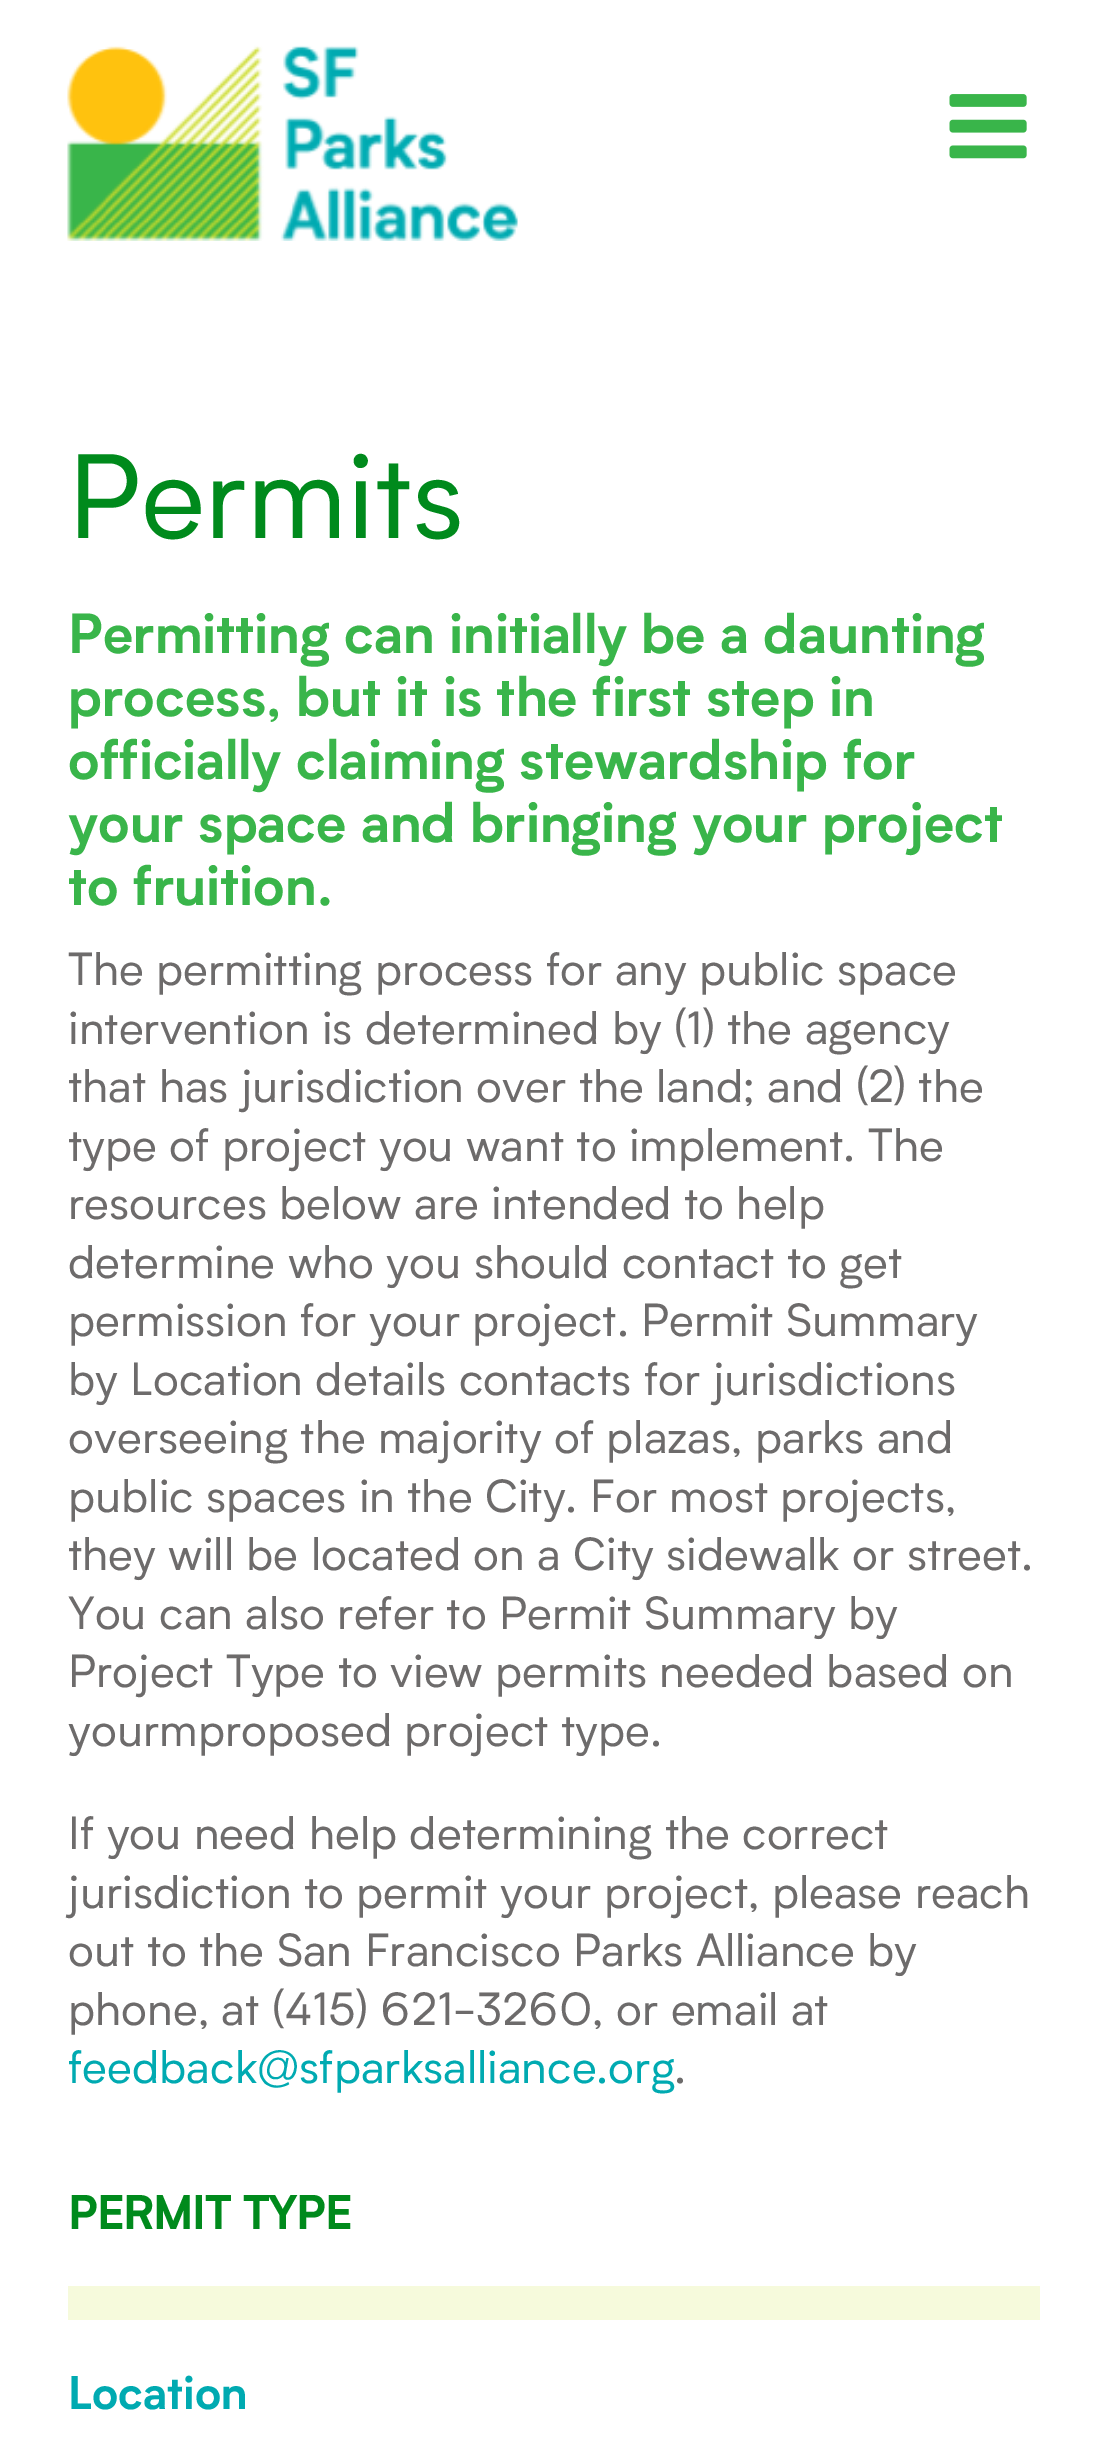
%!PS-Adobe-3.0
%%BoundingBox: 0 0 1106 2447
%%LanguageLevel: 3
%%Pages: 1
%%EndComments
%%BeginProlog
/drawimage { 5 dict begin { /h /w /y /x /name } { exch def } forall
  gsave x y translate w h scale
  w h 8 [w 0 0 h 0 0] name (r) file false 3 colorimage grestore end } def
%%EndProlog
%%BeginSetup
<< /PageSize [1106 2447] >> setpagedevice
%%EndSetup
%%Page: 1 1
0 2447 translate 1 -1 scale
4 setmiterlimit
1 setgray
0 0 1106 2447 rectfill
(images/1.raw) 67 45 451 196 drawimage
(images/2.raw) 949 94 78 65 drawimage
0.965 0.98 0.863 setrgbcolor
68 2286 972 34 rectfill
/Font-Regular [116.5 0 0 -116.5 0 0] selectfont
0 0.541 0.11 setrgbcolor
68 538 moveto (Permits) show
/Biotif-Bold [54 0 0 -54 0 0] selectfont
0.224 0.71 0.29 setrgbcolor
68 653 moveto (Permitting can initially be a daunting) show
68 716 moveto (process, but it is the first step in) show
68 779 moveto (officially claiming stewardship for) show
68 842 moveto (your space and bringing your project) show
68 905 moveto (to fruition.) show
/Font-Regular [45 0 0 -45 0 0] selectfont
0.427 0.42 0.42 setrgbcolor
68 985 moveto (The permitting process for any public space) show
68 1044 moveto (intervention is determined by \(1\) the agency) show
68 1102 moveto (that has jurisdiction over the land; and \(2\) the) show
68 1161 moveto (type of project you want to implement. The) show
68 1219 moveto (resources below are intended to help) show
68 1278 moveto (determine who you should contact to get) show
68 1336 moveto (permission for your project. Permit Summary) show
68 1395 moveto (by Location details contacts for jurisdictions) show
68 1453 moveto (overseeing the majority of plazas, parks and) show
68 1512 moveto (public spaces in the City. For most projects,) show
68 1570 moveto (they will be located on a City sidewalk or street.) show
68 1629 moveto (You can also refer to Permit Summary by) show
68 1687 moveto (Project Type to view permits needed based on) show
68 1746 moveto (yourmproposed project type.) show
68 1849 moveto (If you need help determining the correct) show
68 1908 moveto (jurisdiction to permit your project, please reach) show
68 1966 moveto (out to the San Francisco Parks Alliance by) show
68 2025 moveto (phone, at \(415\) 621-3260, or email at) show
0 0.667 0.694 setrgbcolor
68 2083 moveto (feedback@sfparksalliance.org) show
0.427 0.42 0.42 setrgbcolor
674 2083 moveto (.) show
/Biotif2-Bold [45 0 0 -45 0 0] selectfont
0 0.541 0.11 setrgbcolor
68 2229 moveto (PERMIT TYPE) show
/Biotif-Bold [45 0 0 -45 0 0] selectfont
0 0.667 0.694 setrgbcolor
68 2409 moveto (Location) show
showpage
%%EOF
